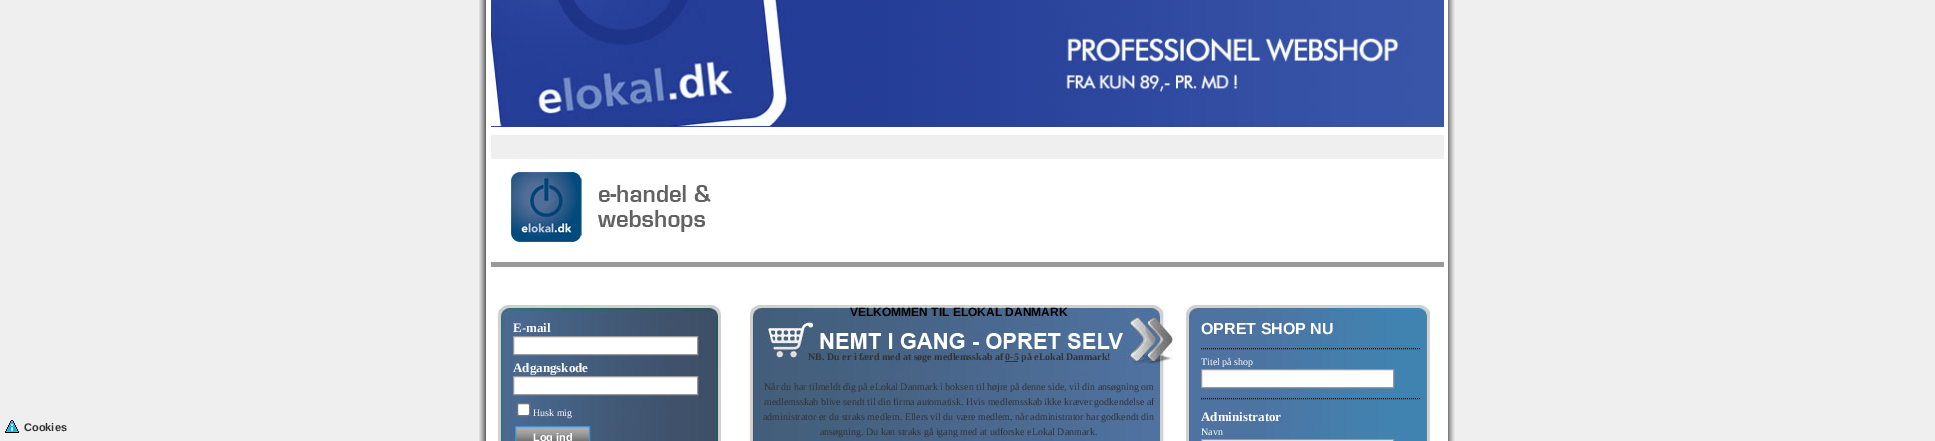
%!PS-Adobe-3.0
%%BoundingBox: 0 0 1935 441
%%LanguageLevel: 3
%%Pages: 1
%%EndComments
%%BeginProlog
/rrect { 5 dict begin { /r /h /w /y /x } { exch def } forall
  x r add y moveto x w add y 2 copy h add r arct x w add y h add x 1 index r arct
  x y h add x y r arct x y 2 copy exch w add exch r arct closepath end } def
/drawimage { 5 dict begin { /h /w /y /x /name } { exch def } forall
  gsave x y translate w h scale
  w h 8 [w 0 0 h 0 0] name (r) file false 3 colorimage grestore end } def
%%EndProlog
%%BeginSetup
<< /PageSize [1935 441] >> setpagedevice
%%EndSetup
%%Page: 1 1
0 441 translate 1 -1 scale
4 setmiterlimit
0.937 setgray
0 0 1935 441 rectfill
(images/1.raw) 479 0 976 441 drawimage
(images/2.raw) 479 0 976 441 drawimage
(images/3.raw) 491 0 953 127 drawimage
491 135 953 24 rectfill
(images/4.raw) 511 172 200 70 drawimage
0.6 setgray
491 262 953 5 rectfill
(images/5.raw) 5 420 14 13 drawimage
(images/6.raw) 498 305 223 136 drawimage
1 setgray
newpath 513.5 336.5 moveto 697.5 336.5 lineto 697.5 354.5 lineto 513.5 354.5 lineto closepath gsave fill grestore
0.6 setgray
stroke
1 setgray
newpath 513.5 376.5 moveto 697.5 376.5 lineto 697.5 394.5 lineto 513.5 394.5 lineto closepath gsave fill grestore
0.6 setgray
stroke
1 setgray
517.5 403.5 12 12 1.5 rrect gsave fill grestore
0.463 setgray
stroke
(images/7.raw) 516 427 73 14 drawimage
0.259 0.573 0.812 setrgbcolor
515.5 426.5 74 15 rectstroke
(images/8.raw) 750 305 423 136 drawimage
0.2 setgray
1005 361 13 1 rectfill
(images/9.raw) 1186 305 244 136 drawimage
0 setgray
[1 1] 0 setdash
newpath 1201 348.5 moveto 1421 348.5 lineto stroke
1 setgray
newpath 1201.5 369.5 moveto 1393.5 369.5 lineto 1393.5 387.5 lineto 1201.5 387.5 lineto closepath gsave fill grestore
0.6 setgray
[] 0 setdash
stroke
0 setgray
[1 1] 0 setdash
newpath 1201 398.5 moveto 1421 398.5 lineto stroke
1 setgray
newpath 1201.5 439.5 moveto 1393.5 439.5 lineto 1393.5 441.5 lineto 1201.5 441.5 lineto closepath gsave fill grestore
0.6 setgray
[] 0 setdash
stroke
/LiberationSans-Bold [11 0 0 -11 0 0] selectfont
0.2 setgray
24 431 moveto (Cookies) show
/LiberationSerif-Bold [13 0 0 -13 0 0] selectfont
1 setgray
513 332 moveto (E-mail) show
513 372 moveto (Adgangskode) show
/LiberationSerif-Regular [10 0 0 -10 0 0] selectfont
533 416 moveto (Husk mig) show
/LiberationSans-Bold [11 0 0 -11 0 0] selectfont
533 441 moveto (Log ind) show
/LiberationSans-Bold [12 0 0 -12 0 0] selectfont
0 setgray
850 316 moveto (VELKOMMEN TIL ELOKAL DANMARK) show
/LiberationSerif-Bold [10 0 0 -10 0 0] selectfont
0.2 setgray
808 360 moveto (NB. Du er i færd med at søge medlemsskab af 0-5 på eLokal Danmark!) show
/LiberationSerif-Regular [10 0 0 -10 0 0] selectfont
764 390 moveto (Når du har tilmeldt dig på eLokal Danmark i boksen til højre på denne side, vil din ansøgning om) show
764 405 moveto (medlemsskab blive sendt til din firma automatisk. Hvis medlemsskab ikke kræver godkendelse af) show
763 420 moveto (administrator er du straks medlem. Ellers vil du være medlem, når administrator har godkendt din) show
820 435 moveto (ansøgning. Du kan straks gå igang med at udforske eLokal Danmark.) show
/LiberationSans-Bold [16 0 0 -16 0 0] selectfont
1 setgray
1201 334 moveto (OPRET SHOP NU) show
/LiberationSerif-Regular [10 0 0 -10 0 0] selectfont
1201 365 moveto (Titel på shop) show
/LiberationSerif-Bold [13 0 0 -13 0 0] selectfont
1201 421 moveto (Administrator) show
/LiberationSerif-Regular [10 0 0 -10 0 0] selectfont
1201 435 moveto (Navn) show
showpage
%%EOF
